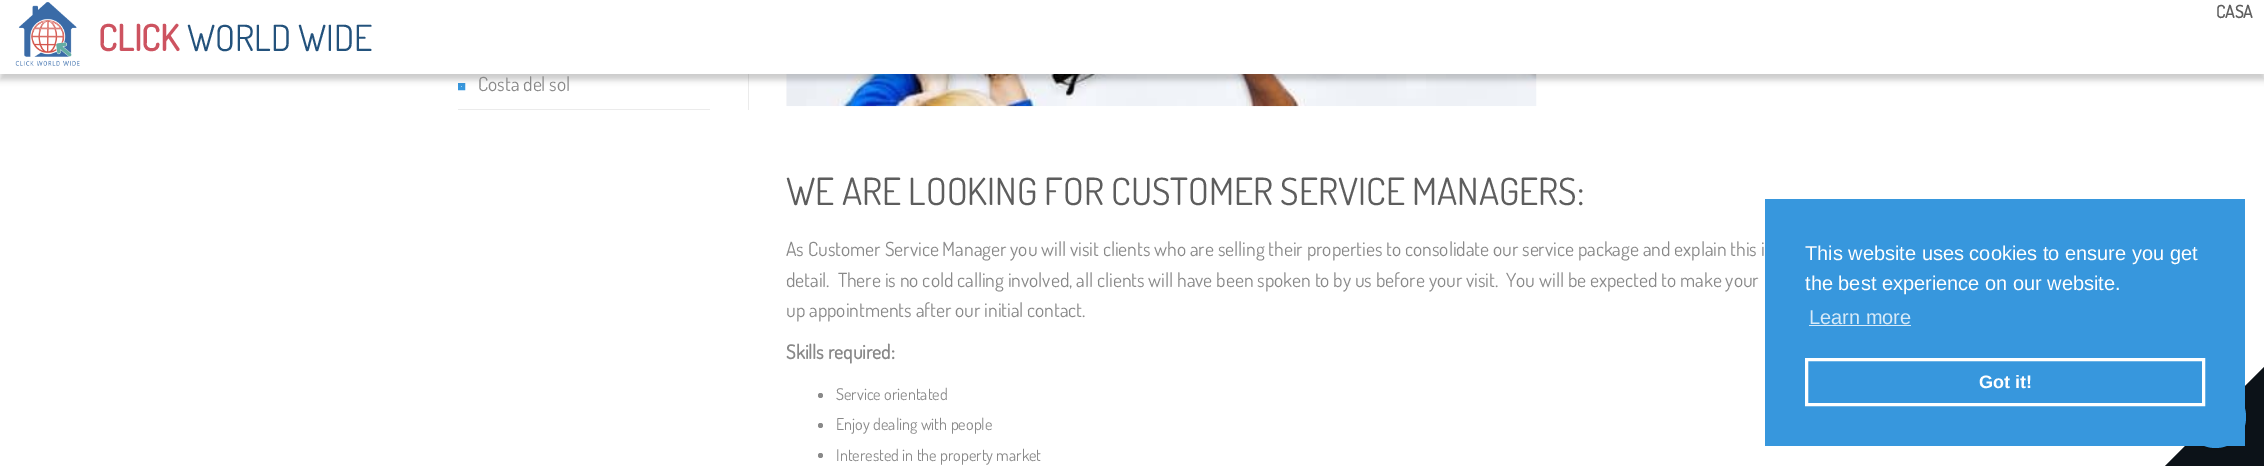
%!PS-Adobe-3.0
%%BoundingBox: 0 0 2264 466
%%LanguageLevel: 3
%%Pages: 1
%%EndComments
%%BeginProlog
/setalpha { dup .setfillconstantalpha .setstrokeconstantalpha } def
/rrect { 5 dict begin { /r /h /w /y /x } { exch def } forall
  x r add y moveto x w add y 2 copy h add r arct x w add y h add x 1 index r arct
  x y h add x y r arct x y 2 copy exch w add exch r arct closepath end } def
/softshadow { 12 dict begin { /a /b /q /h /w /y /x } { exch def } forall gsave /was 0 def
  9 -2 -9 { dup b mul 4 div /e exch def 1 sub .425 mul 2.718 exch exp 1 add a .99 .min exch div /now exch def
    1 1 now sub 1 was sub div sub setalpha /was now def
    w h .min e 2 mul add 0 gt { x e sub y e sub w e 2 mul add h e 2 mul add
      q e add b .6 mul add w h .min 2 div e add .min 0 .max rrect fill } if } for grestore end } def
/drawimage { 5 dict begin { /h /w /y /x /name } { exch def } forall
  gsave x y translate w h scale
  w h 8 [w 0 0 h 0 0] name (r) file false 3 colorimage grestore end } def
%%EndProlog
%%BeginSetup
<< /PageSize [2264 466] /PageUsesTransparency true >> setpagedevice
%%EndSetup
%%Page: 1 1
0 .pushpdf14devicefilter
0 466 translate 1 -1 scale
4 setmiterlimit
1 setgray
0 0 2264 466 rectfill
0.922 setgray
748 74 1 36 rectfill
0.216 0.592 0.867 setrgbcolor
3 setlinewidth
459.5 84.5 4 4 rectstroke
(images/2.raw) 786 74 751 33 drawimage
0 setgray
0 -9 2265 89 0 3 0.2 softshadow
1 setgray
0 0 2264 74 rectfill
(images/1.raw) 15 2 65 64 drawimage
0.922 setgray
458 109 252 1 rectfill
0.537 setgray
newpath 820.5 395.5 2.5 0 360 arc closepath fill
newpath 820.5 425.5 2.5 0 360 arc closepath fill
newpath 820.5 455.5 2.5 0 360 arc closepath fill
0.047 0.071 0.094 setrgbcolor
newpath 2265 466 moveto 2165 466 lineto 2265 366 lineto closepath fill
0 setgray
2185 386 61 62 30.5 3 0.3 softshadow
0.216 0.592 0.867 setrgbcolor
2185 386 61 62 30.5 rrect fill
1765 199 480 247 rectfill
0.843 0.918 0.973 setrgbcolor
1809 325 102 1 rectfill
1 setgray
1806.5 359.5 397 45 rectstroke
/Dosis-Bold [17.5 0 0 -17.5 0 0] selectfont
0.365 setgray
2216 18 moveto (CASA) show
/Dosis-Bold [36 0 0 -36 0 0] selectfont
0.804 0.325 0.376 setrgbcolor
98 51 moveto (CLICK) show
/Dosis-Regular [36 0 0 -36 0 0] selectfont
0.137 0.322 0.486 setrgbcolor
187 51 moveto (WORLD WIDE) show
/Dosis-Regular [19.5 0 0 -19.5 0 0] selectfont
0.537 setgray
478 91 moveto (Costa del sol) show
/Dosis-Regular [37.5 0 0 -37.5 0 0] selectfont
0.365 setgray
786 205 moveto (WE ARE LOOKING FOR CUSTOMER SERVICE MANAGERS:) show
/Dosis-Regular [19.5 0 0 -19.5 0 0] selectfont
0.537 setgray
786 256 moveto (As Customer Service Manager you will visit clients who are selling their properties to consolidate our service package and explain this i) show
786 287 moveto (detail.  There is no cold calling involved, all clients will have been spoken to by us before your visit.  You will be expected to make your) show
786 317 moveto (up appointments after our initial contact.) show
/Dosis-Bold [19.5 0 0 -19.5 0 0] selectfont
786 359 moveto (Skills required:) show
/Dosis-Regular [16.25 0 0 -16.25 0 0] selectfont
836 400 moveto (Service orientated) show
836 430 moveto (Enjoy dealing with people) show
836 461 moveto (Interested in the property market) show
/LiberationSans-Regular [20 0 0 -20 0 0] selectfont
1 setgray
1805 260 moveto (This website uses cookies to ensure you get) show
1805 290 moveto (the best experience on our website.) show
0.843 0.918 0.973 setrgbcolor
1809 324 moveto (Learn more) show
/LiberationSans-Bold [18 0 0 -18 0 0] selectfont
1 setgray
1979 388 moveto (Got it!) show
.poppdf14devicefilter showpage
%%EOF
